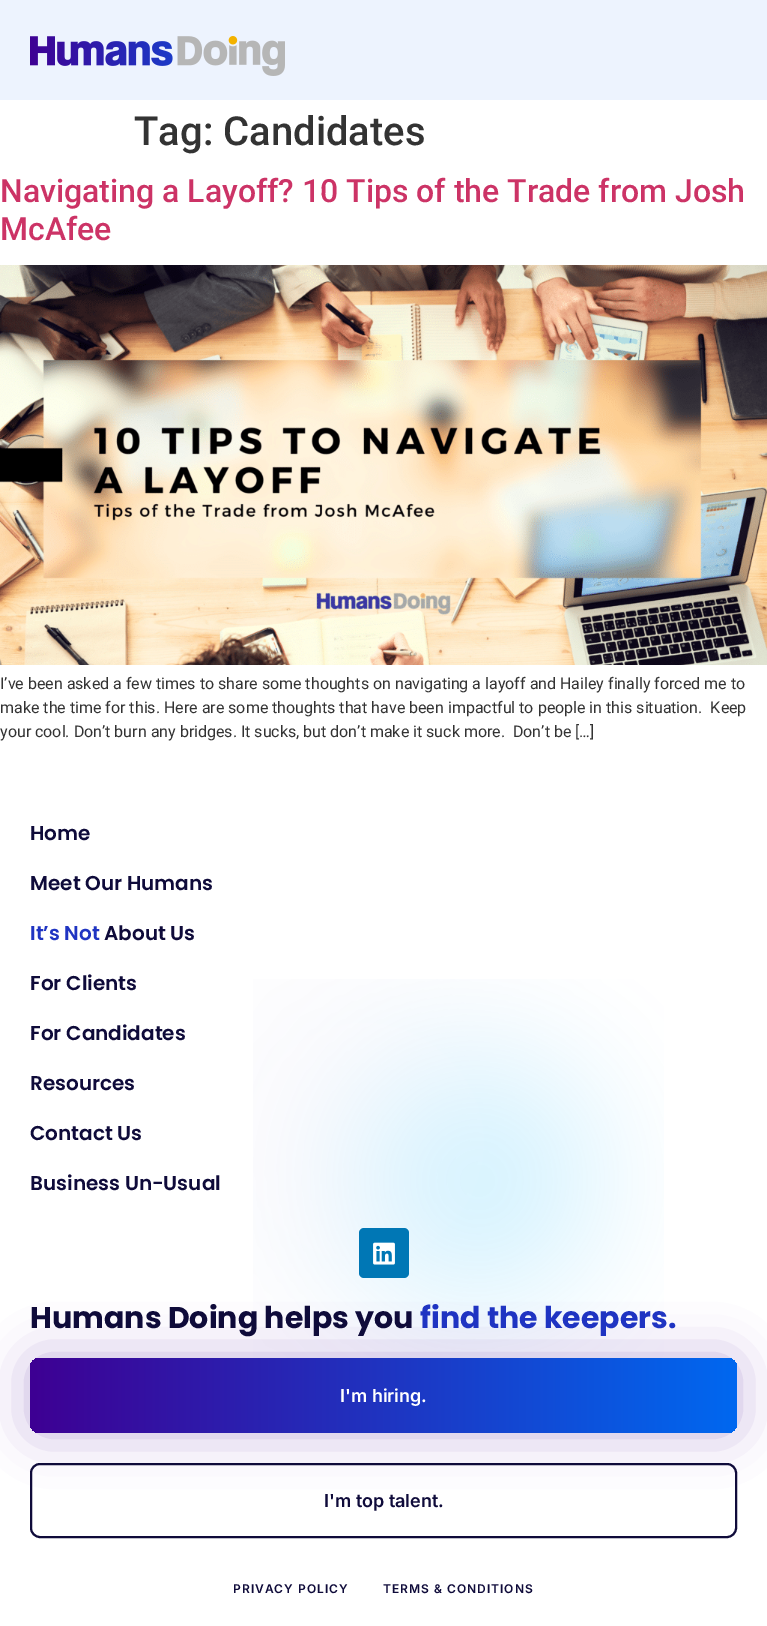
%!PS-Adobe-3.0
%%BoundingBox: 0 0 767 1626
%%LanguageLevel: 3
%%Pages: 1
%%EndComments
%%BeginProlog
/setalpha { dup .setfillconstantalpha .setstrokeconstantalpha } def
/rrect { 5 dict begin { /r /h /w /y /x } { exch def } forall
  x r add y moveto x w add y 2 copy h add r arct x w add y h add x 1 index r arct
  x y h add x y r arct x y 2 copy exch w add exch r arct closepath end } def
/softshadow { 12 dict begin { /a /b /q /h /w /y /x } { exch def } forall gsave /was 0 def
  9 -2 -9 { dup b mul 4 div /e exch def 1 sub .425 mul 2.718 exch exp 1 add a .99 .min exch div /now exch def
    1 1 now sub 1 was sub div sub setalpha /was now def
    w h .min e 2 mul add 0 gt { x e sub y e sub w e 2 mul add h e 2 mul add
      q e add b .6 mul add w h .min 2 div e add .min 0 .max rrect fill } if } for grestore end } def
/drawimage { 5 dict begin { /h /w /y /x /name } { exch def } forall
  gsave x y translate w h scale
  w h 8 [w 0 0 h 0 0] name (r) file false 3 colorimage grestore end } def
%%EndProlog
%%BeginSetup
<< /PageSize [767 1626] /PageUsesTransparency true >> setpagedevice
%%EndSetup
%%Page: 1 1
0 .pushpdf14devicefilter
0 1626 translate 1 -1 scale
4 setmiterlimit
1 setgray
0 0 767 1626 rectfill
0.929 0.953 0.996 setrgbcolor
0 0 767 100 rectfill
(images/1.raw) 30 36 255 40 drawimage
(images/2.raw) 0 265 767 400 drawimage
(images/4.raw) 253 979 411 379 drawimage
0 0.467 0.71 setrgbcolor
359 1228 50 50 5 rrect fill
(images/3.raw) 373 1242 22 23 drawimage
0.243 0 0.576 setrgbcolor
30 1358 707 75 10 25 0.31 softshadow
gsave 30 1358 707 75 10 rrect clip newpath
<< /ShadingType 2 /ColorSpace /DeviceRGB /Coords [30 1396 737 1396] /Extend [true true] /Function << /FunctionType 2 /Domain [0 1] /C0 [0.243 0 0.576] /C1 [0 0.408 0.941] /N 1 >> >> shfill grestore
0.059 0.043 0.227 setrgbcolor
2 setlinewidth
31 1464 705 73 9 rrect stroke
/Roboto-Medium [40 0 0 -40 0 0] selectfont
0.2 setgray
134 145 moveto (Tag: Candidates) show
/Roboto-Medium [32 0 0 -32 0 0] selectfont
0.8 0.2 0.4 setrgbcolor
0 202 moveto (Navigating a Layoff? 10 Tips of the Trade from Josh) show
0 240 moveto (McAfee) show
/Roboto-Regular [16 0 0 -16 0 0] selectfont
0.2 setgray
0 689 moveto (I’ve been asked a few times to share some thoughts on navigating a layoff and Hailey finally forced me to) show
0 713 moveto (make the time for this. Here are some thoughts that have been impactful to people in this situation.  Keep) show
0 737 moveto (your cool. Don’t burn any bridges. It sucks, but don’t make it suck more.  Don’t be […]) show
/Poppins-SemiBold [20 0 0 -20 0 0] selectfont
0.059 0.043 0.227 setrgbcolor
30 840 moveto (Home) show
30 890 moveto (Meet Our Humans) show
0.122 0.204 0.761 setrgbcolor
30 940 moveto (It’s Not) show
0.059 0.043 0.227 setrgbcolor
104 940 moveto (About Us) show
30 990 moveto (For Clients) show
30 1040 moveto (For Candidates) show
30 1090 moveto (Resources) show
30 1140 moveto (Contact Us) show
30 1190 moveto (Business Un-Usual) show
/Poppins-Bold [30 0 0 -30 0 0] selectfont
30 1328 moveto (Humans Doing helps you) show
0.122 0.204 0.761 setrgbcolor
420 1328 moveto (find the keepers.) show
/Inter-SemiBold [18 0 0 -18 0 0] selectfont
1 setgray
340 1402 moveto (I'm hiring.) show
0.059 0.043 0.227 setrgbcolor
324 1507 moveto (I'm top talent.) show
/Inter-SemiBold [12 0 0 -12 0 0] selectfont
233 1593 moveto 1 0 (PRIVACY POLICY) ashow
383 1593 moveto 1 0 (TERMS & CONDITIONS) ashow
.poppdf14devicefilter showpage
%%EOF
